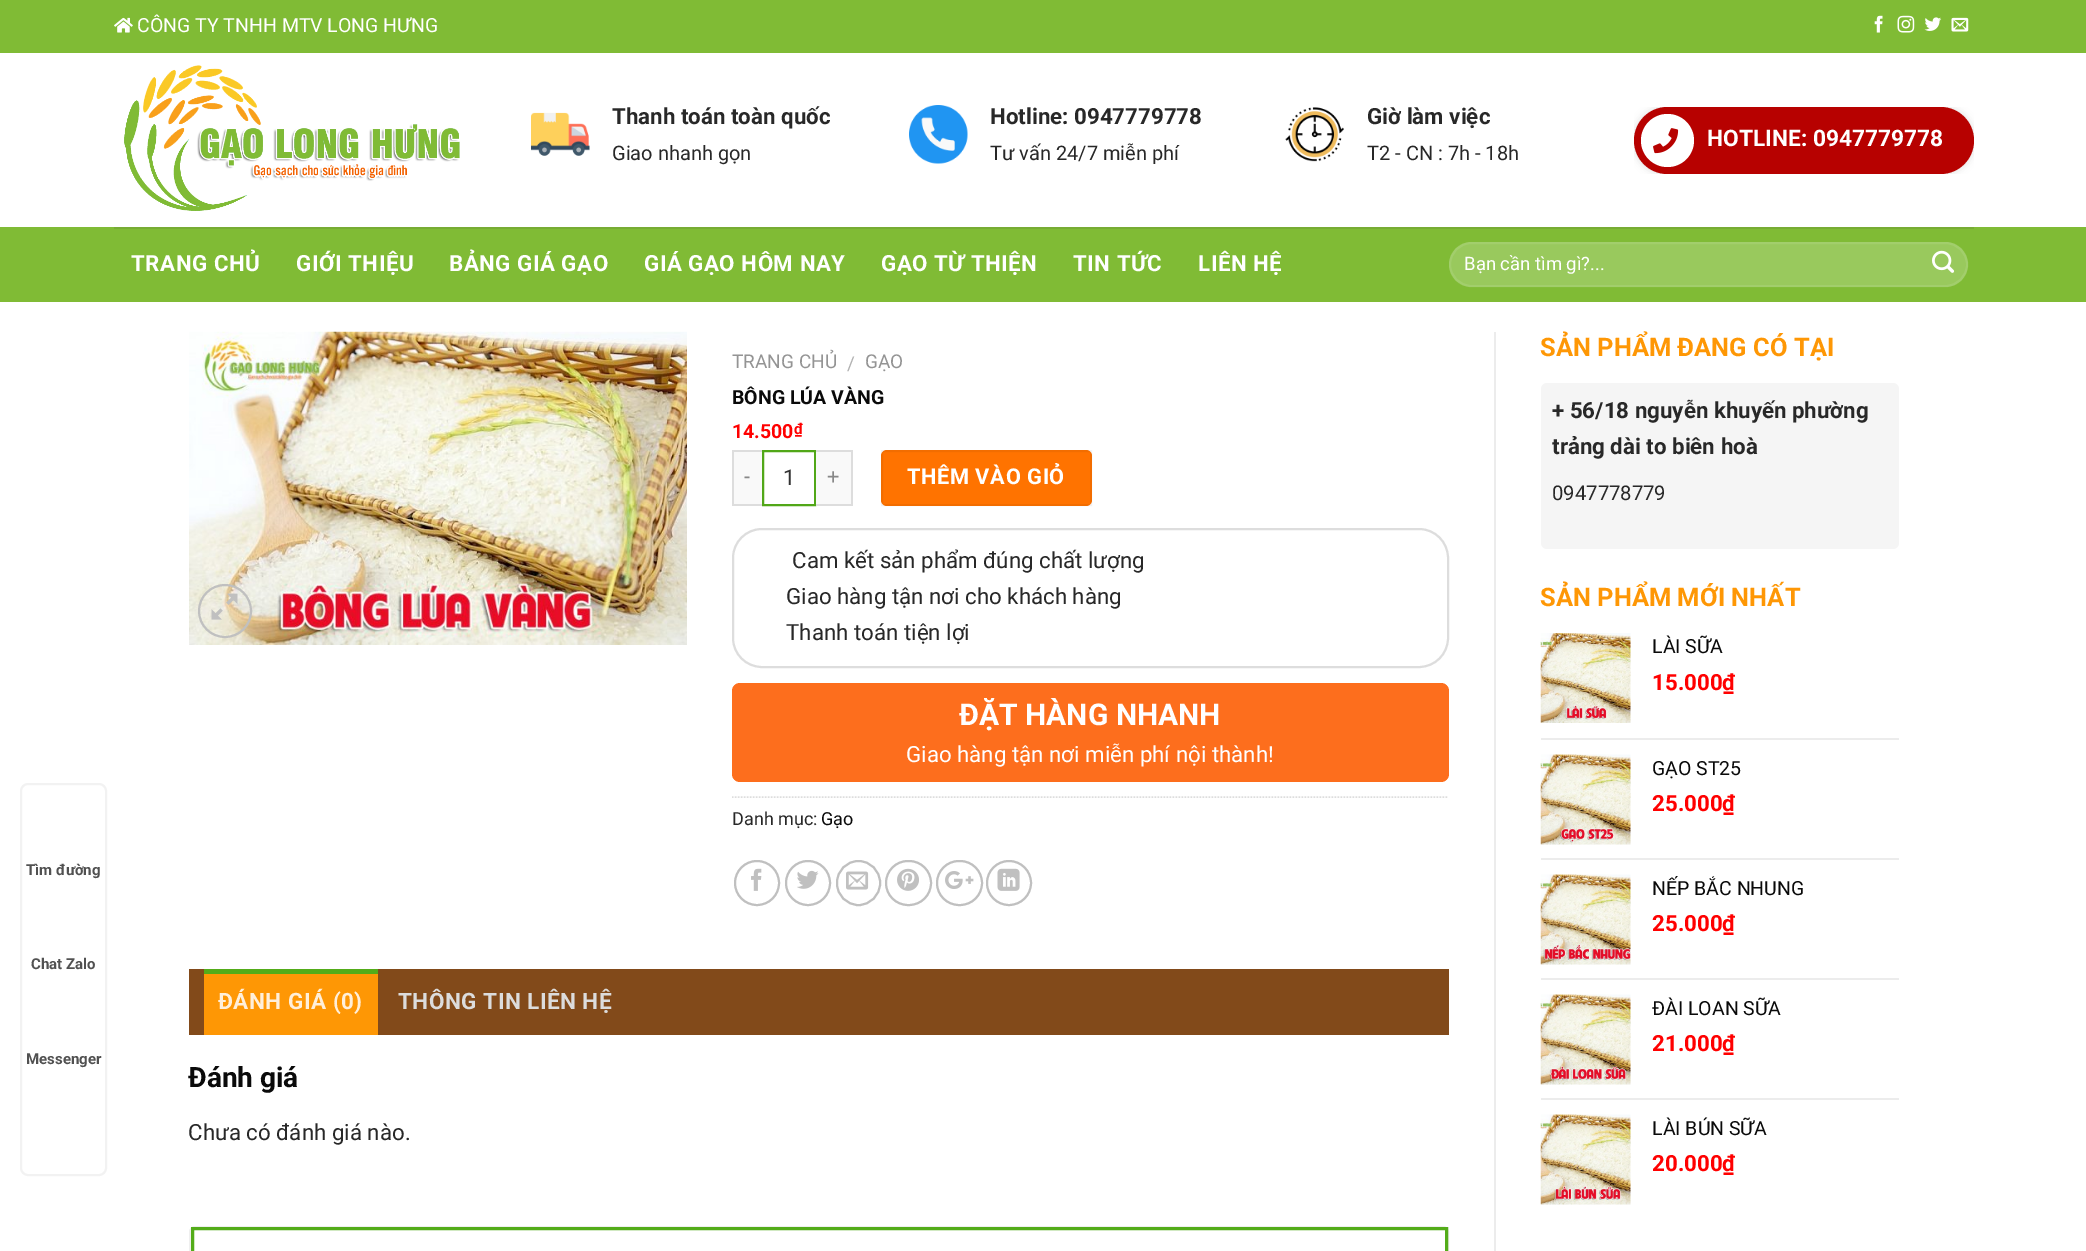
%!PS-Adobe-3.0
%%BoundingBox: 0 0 2086 1251
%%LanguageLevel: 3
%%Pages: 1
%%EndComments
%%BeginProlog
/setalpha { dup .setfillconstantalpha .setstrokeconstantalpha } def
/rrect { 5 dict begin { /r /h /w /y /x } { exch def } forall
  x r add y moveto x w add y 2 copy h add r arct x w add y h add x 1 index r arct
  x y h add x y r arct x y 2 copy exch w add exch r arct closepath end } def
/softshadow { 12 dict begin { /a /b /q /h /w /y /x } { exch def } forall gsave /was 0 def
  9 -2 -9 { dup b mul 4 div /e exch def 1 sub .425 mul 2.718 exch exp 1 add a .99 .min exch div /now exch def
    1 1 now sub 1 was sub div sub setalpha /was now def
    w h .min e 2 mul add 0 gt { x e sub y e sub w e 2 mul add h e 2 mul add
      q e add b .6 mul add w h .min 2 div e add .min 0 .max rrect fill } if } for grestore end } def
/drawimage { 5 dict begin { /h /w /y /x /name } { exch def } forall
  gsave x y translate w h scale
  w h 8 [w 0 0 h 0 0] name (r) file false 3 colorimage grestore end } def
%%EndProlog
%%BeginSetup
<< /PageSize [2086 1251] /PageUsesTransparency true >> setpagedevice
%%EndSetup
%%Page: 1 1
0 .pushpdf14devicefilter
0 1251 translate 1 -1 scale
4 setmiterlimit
1 setgray
0 0 2086 1251 rectfill
0.949 setgray
2 setlinewidth
21 784 85 391 7 rrect stroke
0.502 0.733 0.208 setrgbcolor
0 0 2086 53 rectfill
(images/1.raw) 114 17 19 16 drawimage
(images/2.raw) 1874 15 9 18 drawimage
(images/3.raw) 1897 15 18 18 drawimage
(images/4.raw) 1924 17 18 14 drawimage
(images/5.raw) 1951 17 18 15 drawimage
(images/6.raw) 124 65 336 146 drawimage
(images/7.raw) 531 112 59 44 drawimage
(images/8.raw) 909 105 59 59 drawimage
(images/9.raw) 1285 107 59 55 drawimage
gsave
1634 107 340 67 rectclip
0.867 setgray
1634 107 340 67 33.5 4 1 softshadow
grestore
0.718 0.004 0 setrgbcolor
1634 107 340 67 33.5 rrect fill
1 setgray
newpath 1667.5 140.5 26.5 0 360 arc closepath fill
(images/10.raw) 1653 128 26 26 drawimage
0.502 0.733 0.208 setrgbcolor
0 227 2086 75 rectfill
0.467 0.675 0.204 setrgbcolor
114 227 1860 2 rectfill
0.6 0.788 0.365 setrgbcolor
1449 242 519 45 22.5 rrect fill
0.09 setalpha
1 setgray
1450 243 517 43 21.5 rrect stroke
1 setalpha
(images/11.raw) 1932 250 23 23 drawimage
(images/12.raw) 189 331 498 314 drawimage
0.753 setgray
newpath 225 611 26 0 360 arc closepath stroke
(images/13.raw) 211 593 27 27 drawimage
0.976 setgray
734 452 28 52 rectfill
0.867 setgray
732 450 30 2 rectfill
732 504 30 2 rectfill
732 450 2 56 rectfill
0.318 0.655 0.094 setrgbcolor
763 451 52 54 rectstroke
0.976 setgray
816 452 35 52 rectfill
0.867 setgray
816 450 36 2 rectfill
851 450 2 56 rectfill
816 504 36 2 rectfill
1 0.451 0 setrgbcolor
881 450 211 56 6 rrect fill
0.05 setalpha
0 setgray
882 451 209 54 rectstroke
1 setalpha
0.867 setgray
733 529 715 138 29 rrect stroke
0.992 0.431 0.114 setrgbcolor
732 683 717 99 8 rrect fill
0.867 setgray
1.5 setlinewidth
[1.5 1.5] 0 setdash
newpath 732 797 moveto 1449 797 lineto stroke
0.753 setgray
2 setlinewidth
[] 0 setdash
newpath 757 883 22 0 360 arc closepath stroke
(images/14.raw) 751 868 11 23 drawimage
newpath 808 883 22 0 360 arc closepath stroke
(images/15.raw) 797 870 22 19 drawimage
837 861 43 44 21.5 rrect stroke
(images/16.raw) 846 871 23 19 drawimage
886 861 45 44 22 rrect stroke
(images/17.raw) 897 868 22 23 drawimage
937 861 45 44 22 rrect stroke
(images/18.raw) 945 871 29 18 drawimage
newpath 1009 883 22 0 360 arc closepath stroke
(images/19.raw) 997 868 23 23 drawimage
0.51 0.29 0.102 setrgbcolor
189 969 1260 66 rectfill
0.996 0.592 0.02 setrgbcolor
204 974 174 61 rectfill
0.325 0.675 0.098 setrgbcolor
204 969 174 5 rectfill
0.937 setgray
190 1227 1258 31 5 rrect stroke
0.325 0.675 0.098 setrgbcolor
3 setlinewidth
192.5 1228.5 1254 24 rectstroke
0.925 setgray
1494 332 2 919 rectfill
0.961 setgray
1541 383 358 166 6 rrect fill
(images/20.raw) 1540 633 91 90 drawimage
0.925 setgray
1541 738 358 2 rectfill
(images/21.raw) 1540 754 91 91 drawimage
1541 858 358 2 rectfill
(images/22.raw) 1540 874 91 91 drawimage
1541 978 358 2 rectfill
(images/23.raw) 1540 994 91 91 drawimage
1541 1098 358 2 rectfill
(images/24.raw) 1540 1114 91 91 drawimage
/Roboto-Bold [15 0 0 -15 0 0] selectfont
0.318 setgray
26 875 moveto (Tìm đường) show
31 969 moveto (Chat Zalo) show
26 1064 moveto (Messenger) show
/Roboto-Regular [19.5 0 0 -19.5 0 0] selectfont
1 setgray
137 32 moveto (CÔNG TY TNHH MTV LONG HƯNG) show
/Roboto-Bold [22.3 0 0 -22.3 0 0] selectfont
0.157 setgray
612 124 moveto (Thanh toán toàn quốc) show
/Roboto-Regular [20 0 0 -20 0 0] selectfont
612 160 moveto (Giao nhanh gọn) show
/Roboto-Bold [22.3 0 0 -22.3 0 0] selectfont
990 124 moveto (Hotline: 0947779778) show
/Roboto-Regular [20 0 0 -20 0 0] selectfont
990 160 moveto (Tư vấn 24/7 miễn phí) show
/Roboto-Bold [22.3 0 0 -22.3 0 0] selectfont
1367 124 moveto (Giờ làm việc) show
/Roboto-Regular [20 0 0 -20 0 0] selectfont
1367 160 moveto (T2 - CN : 7h - 18h) show
/Roboto-Bold [22.75 0 0 -22.75 0 0] selectfont
1 setgray
1707 146 moveto (HOTLINE: 0947779778) show
/Roboto-Bold [22.3 0 0 -22.3 0 0] selectfont
131 271 moveto 0.5 0 (TRANG CHỦ) ashow
296 271 moveto 0.5 0 (GIỚI THIỆU) ashow
449 271 moveto 0.5 0 (BẢNG GIÁ GẠO) ashow
644 271 moveto 0.5 0 (GIÁ GẠO HÔM NAY) ashow
881 271 moveto 0.5 0 (GẠO TỪ THIỆN) ashow
1073 271 moveto 0.5 0 (TIN TỨC) ashow
1198 271 moveto 0.5 0 (LIÊN HỆ) ashow
/Roboto-Regular [18.5 0 0 -18.5 0 0] selectfont
1464 270 moveto (Bạn cần tìm gì?...) show
/Roboto-Regular [19 0 0 -19 0 0] selectfont
0.58 setgray
732 368 moveto (TRANG CHỦ) show
0.698 setgray
847 370 moveto (/) show
0.58 setgray
865 368 moveto (GẠO) show
/Roboto-Bold [19.5 0 0 -19.5 0 0] selectfont
0.039 setgray
732 404 moveto (BÔNG LÚA VÀNG) show
1 0 0 setrgbcolor
732 438 moveto (14.500) show
/Roboto-Bold [15 0 0 -15 0 0] selectfont
794 434 moveto (₫) show
/Roboto-Regular [21.75 0 0 -21.75 0 0] selectfont
0.533 setgray
744 484 moveto 0.6 0 (-) ashow
0.2 setgray
783 485 moveto (1) show
0.533 setgray
827 484 moveto 0.6 0 (+) ashow
/Roboto-Bold [21.75 0 0 -21.75 0 0] selectfont
1 setgray
907 484 moveto 0.6 0 (THÊM VÀO GIỎ) ashow
/Roboto-Regular [22.3 0 0 -22.3 0 0] selectfont
0.157 setgray
792 568 moveto (Cam kết sản phẩm đúng chất lượng) show
786 604 moveto (Giao hàng tận nơi cho khách hàng) show
786 640 moveto (Thanh toán tiện lợi) show
/Roboto-Bold [30 0 0 -30 0 0] selectfont
1 setgray
959 725 moveto (ĐẶT HÀNG NHANH) show
/Roboto-Regular [22.3 0 0 -22.3 0 0] selectfont
906 762 moveto (Giao hàng tận nơi miễn phí nội thành!) show
/Roboto-Regular [18 0 0 -18 0 0] selectfont
0.157 setgray
732 825 moveto (Danh mục:) show
0.039 setgray
821 825 moveto (Gạo) show
/Roboto-Bold [22.5 0 0 -22.5 0 0] selectfont
1 0.937 0.855 setrgbcolor
218 1009 moveto 0.5 0 (ĐÁNH GIÁ \(0\)) ashow
0.863 setgray
398 1009 moveto 0.5 0 (THÔNG TIN LIÊN HỆ) ashow
/Roboto-Bold [28 0 0 -28 0 0] selectfont
0.039 setgray
188 1087 moveto (Đánh giá) show
/Roboto-Regular [22.3 0 0 -22.3 0 0] selectfont
0.157 setgray
188 1140 moveto (Chưa có đánh giá nào.) show
/Roboto-Bold [25.5 0 0 -25.5 0 0] selectfont
0.996 0.592 0.02 setrgbcolor
1540 356 moveto (SẢN PHẨM ĐANG CÓ TẠI) show
/Roboto-Bold [22.3 0 0 -22.3 0 0] selectfont
0.157 setgray
1552 418 moveto (+ 56/18 nguyễn khuyến phường) show
1552 454 moveto (trảng dài to biên hoà) show
/Roboto-Regular [20.25 0 0 -20.25 0 0] selectfont
1552 500 moveto (0947778779) show
/Roboto-Bold [25.5 0 0 -25.5 0 0] selectfont
0.996 0.592 0.02 setrgbcolor
1540 606 moveto (SẢN PHẨM MỚI NHẤT) show
/Roboto-Regular [19.5 0 0 -19.5 0 0] selectfont
0.039 setgray
1652 653 moveto (LÀI SỮA) show
/Roboto-Bold [22.3 0 0 -22.3 0 0] selectfont
1 0 0 setrgbcolor
1652 690 moveto (15.000₫) show
/Roboto-Regular [19.5 0 0 -19.5 0 0] selectfont
0.039 setgray
1652 775 moveto (GẠO ST25) show
/Roboto-Bold [22.3 0 0 -22.3 0 0] selectfont
1 0 0 setrgbcolor
1652 811 moveto (25.000₫) show
/Roboto-Regular [19.5 0 0 -19.5 0 0] selectfont
0.039 setgray
1652 895 moveto (NẾP BẮC NHUNG) show
/Roboto-Bold [22.3 0 0 -22.3 0 0] selectfont
1 0 0 setrgbcolor
1652 931 moveto (25.000₫) show
/Roboto-Regular [19.5 0 0 -19.5 0 0] selectfont
0.039 setgray
1652 1015 moveto (ĐÀI LOAN SỮA) show
/Roboto-Bold [22.3 0 0 -22.3 0 0] selectfont
1 0 0 setrgbcolor
1652 1051 moveto (21.000₫) show
/Roboto-Regular [19.5 0 0 -19.5 0 0] selectfont
0.039 setgray
1652 1135 moveto (LÀI BÚN SỮA) show
/Roboto-Bold [22.3 0 0 -22.3 0 0] selectfont
1 0 0 setrgbcolor
1652 1171 moveto (20.000₫) show
.poppdf14devicefilter showpage
%%EOF
